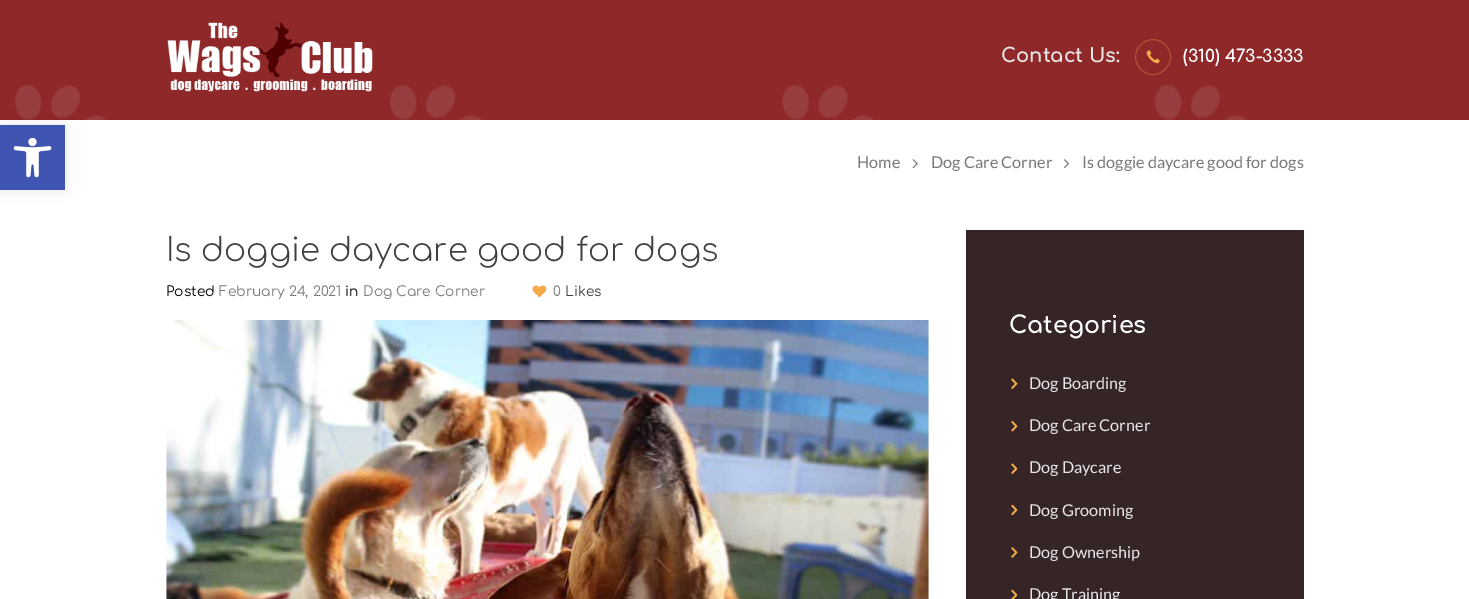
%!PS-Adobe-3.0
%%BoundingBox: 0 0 1469 599
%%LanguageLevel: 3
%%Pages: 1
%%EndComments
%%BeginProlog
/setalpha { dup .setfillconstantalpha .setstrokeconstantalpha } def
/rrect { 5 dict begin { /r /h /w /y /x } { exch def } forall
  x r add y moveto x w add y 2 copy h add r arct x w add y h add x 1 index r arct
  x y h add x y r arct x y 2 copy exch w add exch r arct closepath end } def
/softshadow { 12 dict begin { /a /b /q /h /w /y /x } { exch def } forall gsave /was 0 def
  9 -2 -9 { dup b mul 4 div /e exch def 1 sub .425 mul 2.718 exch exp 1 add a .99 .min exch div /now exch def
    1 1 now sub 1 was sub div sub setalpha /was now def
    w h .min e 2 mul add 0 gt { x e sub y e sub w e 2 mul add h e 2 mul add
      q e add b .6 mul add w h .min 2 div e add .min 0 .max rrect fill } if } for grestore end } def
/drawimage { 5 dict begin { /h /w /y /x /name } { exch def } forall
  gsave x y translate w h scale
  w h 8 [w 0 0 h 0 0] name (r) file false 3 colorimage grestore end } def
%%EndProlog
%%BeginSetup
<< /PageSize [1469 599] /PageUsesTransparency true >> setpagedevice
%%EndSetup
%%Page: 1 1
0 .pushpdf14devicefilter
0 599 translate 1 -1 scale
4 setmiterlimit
1 setgray
0 0 1469 599 rectfill
(images/2.raw) 0 0 1469 120 drawimage
0 setgray
0 125 65 65 0 6 0.1 softshadow
0.251 0.329 0.698 setrgbcolor
0 125 65 65 rectfill
(images/1.raw) 13 138 39 40 drawimage
(images/3.raw) 167 22 206 70 drawimage
0.682 0.31 0.2 setrgbcolor
newpath 1153 57 17.5 0 360 arc closepath stroke
(images/4.raw) 1146 50 14 14 drawimage
(images/5.raw) 912 159 6 10 drawimage
(images/6.raw) 1063 159 7 10 drawimage
(images/7.raw) 532 285 15 13 drawimage
(images/8.raw) 166 320 763 279 drawimage
0.212 0.145 0.149 setrgbcolor
966 230 338 369 rectfill
(images/9.raw) 1011 378 7 11 drawimage
(images/10.raw) 1011 421 7 11 drawimage
(images/9.raw) 1011 463 7 11 drawimage
(images/11.raw) 1011 504 7 12 drawimage
(images/12.raw) 1011 547 7 11 drawimage
(images/13.raw) 1011 589 7 10 drawimage
/Comfortaa-Bold [19.5 0 0 -19.5 0 0] selectfont
0.906 setgray
1001 62 moveto (Contact Us:) show
/Comfortaa-Bold [17.25 0 0 -17.25 0 0] selectfont
1 setgray
1183 62 moveto (\(310\) 473-3333) show
/Lato-Regular [16.25 0 0 -16.25 0 0] selectfont
0.471 setgray
857 168 moveto (Home) show
931 168 moveto (Dog Care Corner) show
1082 168 moveto (Is doggie daycare good for dogs) show
/Comfortaa-Light [32.5 0 0 -32.5 0 0] selectfont
0.251 setgray
166 261 moveto (Is doggie daycare good for dogs) show
/Comfortaa-Regular [13.75 0 0 -13.75 0 0] selectfont
0 setgray
166 296 moveto (Posted) show
0.471 setgray
219 296 moveto (February 24, 2021) show
0 setgray
345 296 moveto (in) show
0.471 setgray
363 296 moveto (Dog Care Corner) show
553 296 moveto (0) show
0.251 setgray
565 296 moveto (Likes) show
/Comfortaa-Bold [23.75 0 0 -23.75 0 0] selectfont
1 setgray
1009 333 moveto (Categories) show
/Lato-Regular [16.25 0 0 -16.25 0 0] selectfont
0.906 setgray
1029 389 moveto (Dog Boarding) show
1029 431 moveto (Dog Care Corner) show
1029 473 moveto (Dog Daycare) show
1029 516 moveto (Dog Grooming) show
1029 558 moveto (Dog Ownership) show
1029 600 moveto (Dog Training) show
.poppdf14devicefilter showpage
%%EOF
